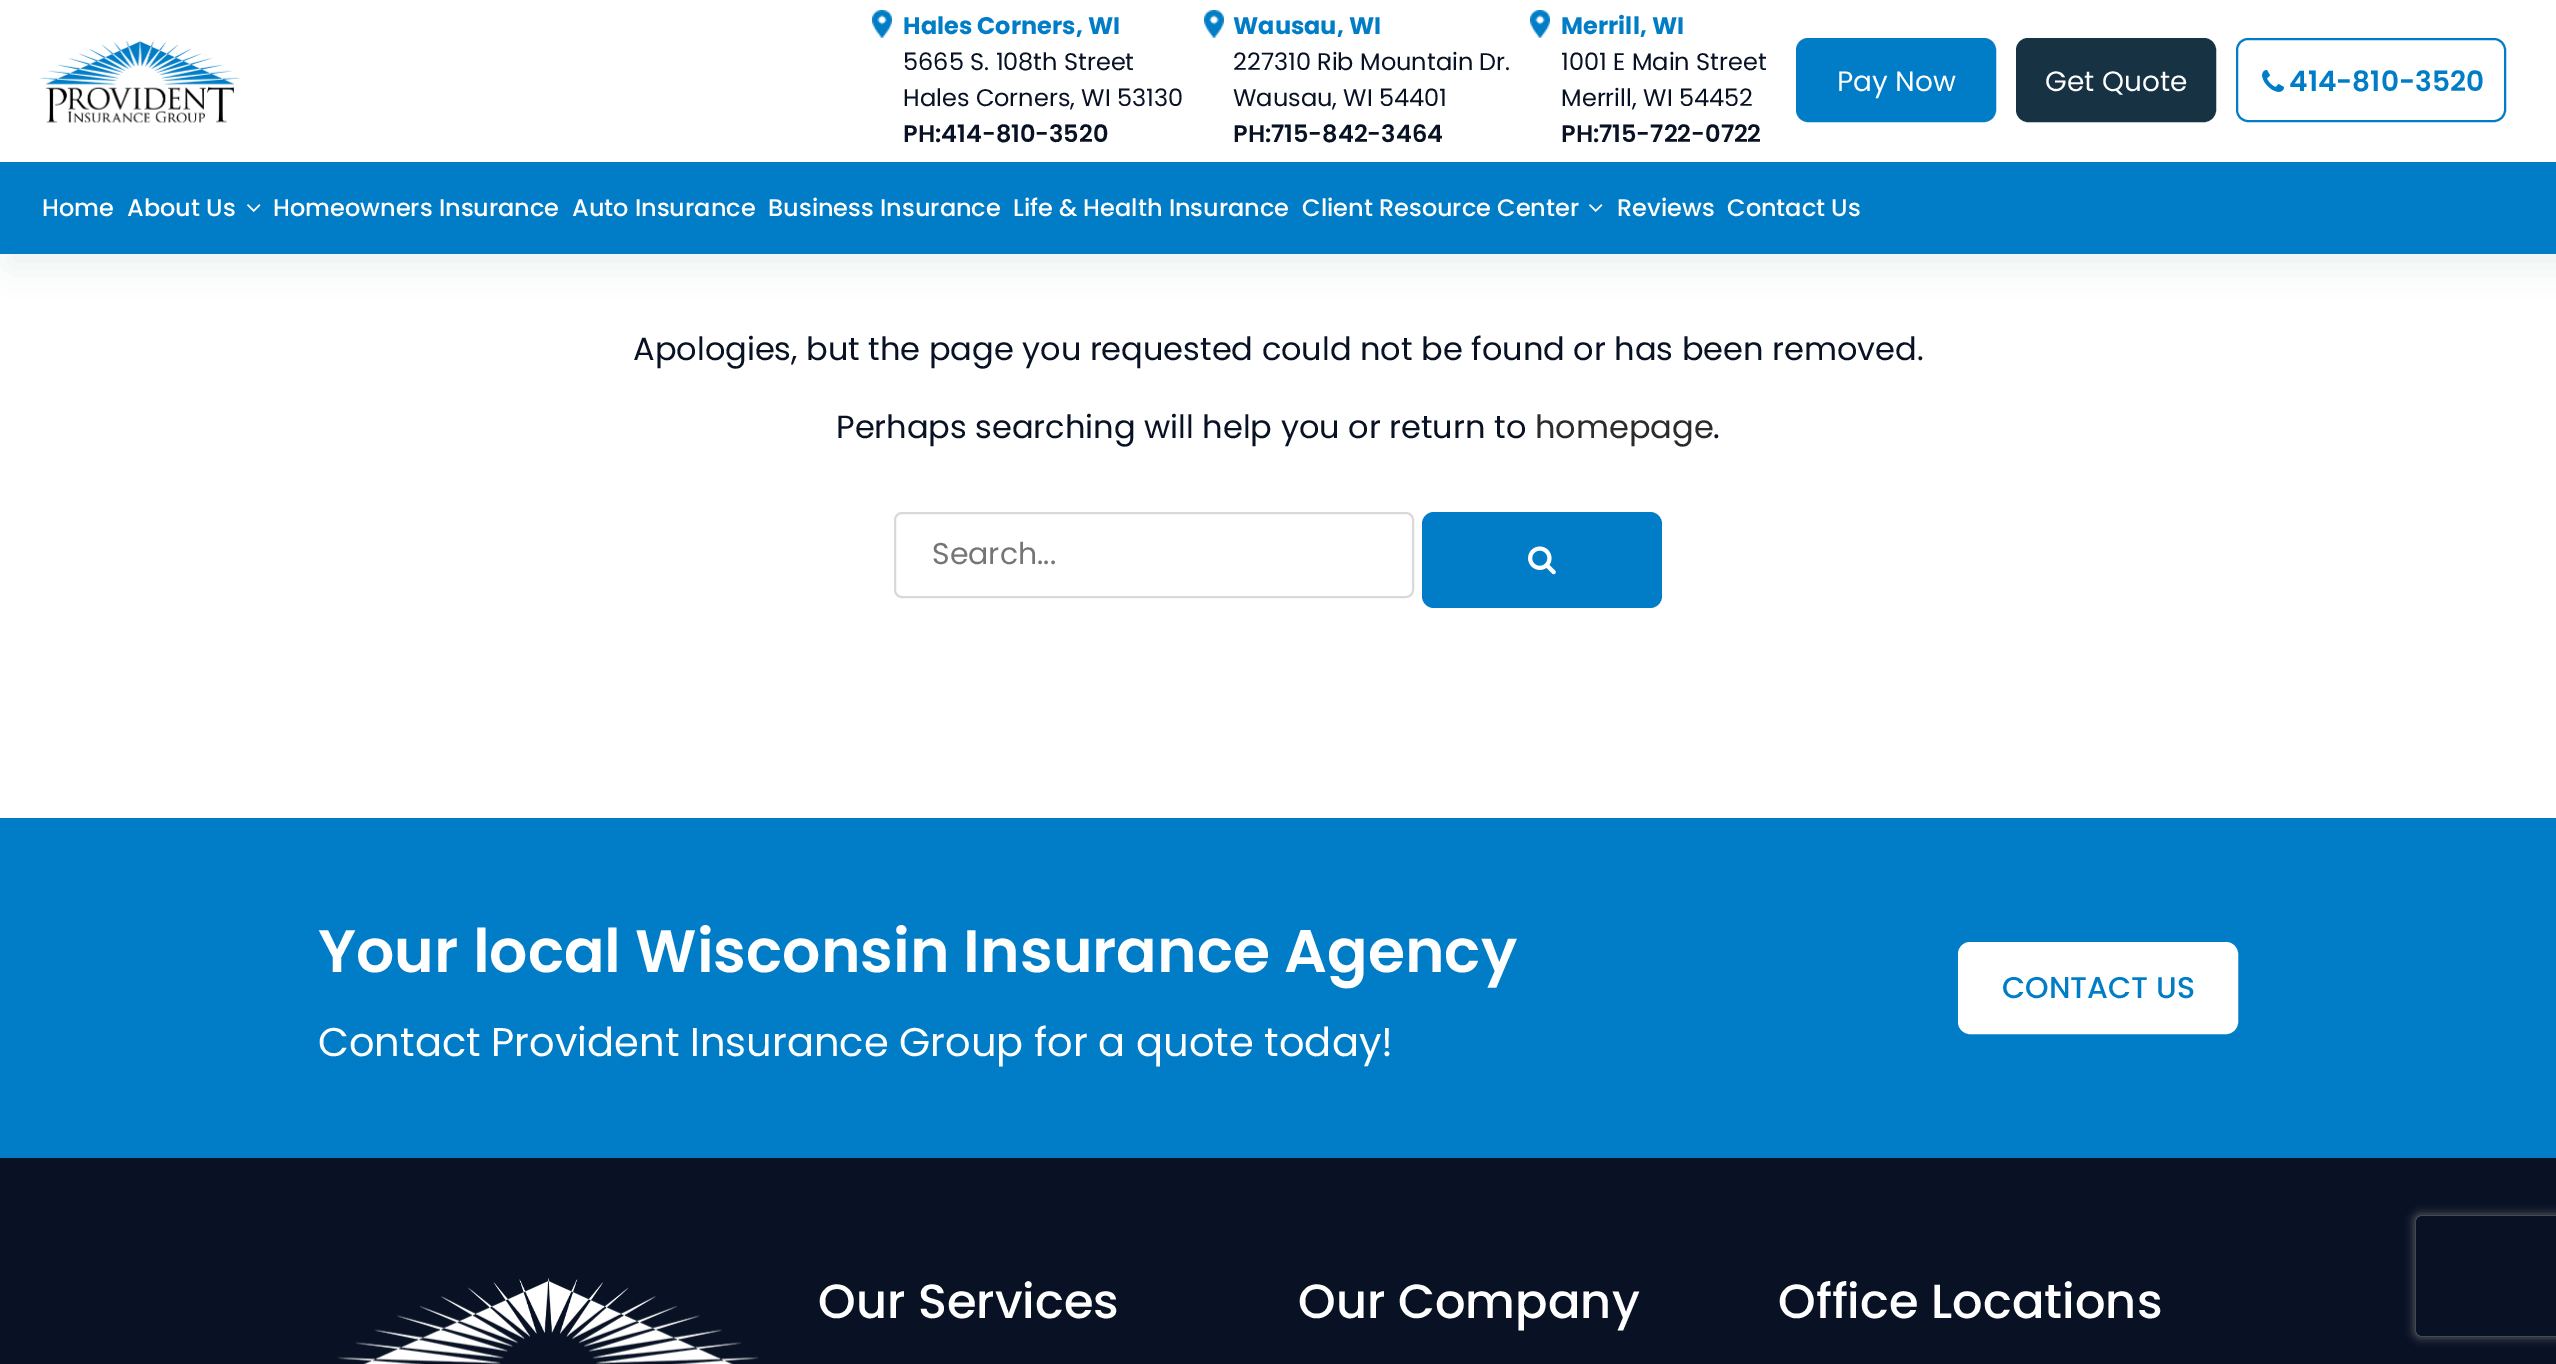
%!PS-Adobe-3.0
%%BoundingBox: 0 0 2556 1364
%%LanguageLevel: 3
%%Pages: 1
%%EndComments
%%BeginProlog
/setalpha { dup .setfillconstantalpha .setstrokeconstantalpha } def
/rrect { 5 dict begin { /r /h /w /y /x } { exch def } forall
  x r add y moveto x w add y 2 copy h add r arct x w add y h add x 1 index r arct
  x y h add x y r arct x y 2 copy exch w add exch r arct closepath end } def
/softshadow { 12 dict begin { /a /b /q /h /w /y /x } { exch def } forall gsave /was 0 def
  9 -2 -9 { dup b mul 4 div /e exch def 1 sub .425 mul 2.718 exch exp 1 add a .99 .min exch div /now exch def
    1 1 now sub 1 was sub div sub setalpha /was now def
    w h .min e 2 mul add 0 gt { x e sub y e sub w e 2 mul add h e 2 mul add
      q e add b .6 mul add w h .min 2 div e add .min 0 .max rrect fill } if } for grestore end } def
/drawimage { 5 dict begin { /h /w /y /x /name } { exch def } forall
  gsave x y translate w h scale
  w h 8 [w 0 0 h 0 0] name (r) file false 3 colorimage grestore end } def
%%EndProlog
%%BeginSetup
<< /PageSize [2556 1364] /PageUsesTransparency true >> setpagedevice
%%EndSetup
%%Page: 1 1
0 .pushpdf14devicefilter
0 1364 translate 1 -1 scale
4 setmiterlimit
1 setgray
0 0 2556 1364 rectfill
0.082 0.404 0.349 setrgbcolor
10 12 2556 254 0 15 0.08 softshadow
1 setgray
0 0 2556 162 rectfill
(images/1.raw) 40 40 200 83 drawimage
(images/2.raw) 872 10 20 28 drawimage
(images/3.raw) 1204 10 20 28 drawimage
(images/2.raw) 1530 10 20 28 drawimage
0 0.49 0.776 setrgbcolor
1797 39 198 82 11 rrect gsave fill grestore
2 setlinewidth
stroke
0.086 0.196 0.263 setrgbcolor
2017 39 198 82 11 rrect gsave fill grestore
stroke
0 0.49 0.776 setrgbcolor
2237 39 268 82 11 rrect stroke
(images/4.raw) 2262 70 22 22 drawimage
0 162 2556 92 rectfill
(images/5.raw) 247 204 14 8 drawimage
(images/5.raw) 1589 204 14 8 drawimage
0.851 setgray
895 513 518 84 7 rrect stroke
0 0.49 0.776 setrgbcolor
1422 512 240 96 12 rrect fill
(images/6.raw) 1528 546 28 29 drawimage
0 818 2556 340 rectfill
1 setgray
1959 943 278 90 11 rrect gsave fill grestore
stroke
0.031 0.071 0.141 setrgbcolor
0 1158 2556 206 rectfill
(images/7.raw) 338 1278 420 86 drawimage
gsave
newpath 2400 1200 moveto 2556 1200 lineto 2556 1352 lineto 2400 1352 lineto closepath 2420 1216 moveto 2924 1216 lineto 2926 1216 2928 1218 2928 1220 curveto 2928 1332 lineto 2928 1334 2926 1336 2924 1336 curveto 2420 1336 lineto 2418 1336 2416 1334 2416 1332 curveto 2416 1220 lineto 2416 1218 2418 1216 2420 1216 curveto closepath eoclip newpath
0.502 setgray
2416 1216 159 120 4 5 1 softshadow
grestore
/Poppins-Bold [24 0 0 -24 0 0] selectfont
0 0.49 0.776 setrgbcolor
903 34 moveto (Hales Corners, WI) show
/Poppins-Regular [24 0 0 -24 0 0] selectfont
0.031 0.071 0.141 setrgbcolor
903 70 moveto (5665 S. 108th Street) show
903 106 moveto (Hales Corners, WI 53130) show
/Poppins-SemiBold [24 0 0 -24 0 0] selectfont
903 142 moveto (PH:414-810-3520) show
/Poppins-Bold [24 0 0 -24 0 0] selectfont
0 0.49 0.776 setrgbcolor
1233 34 moveto (Wausau, WI) show
/Poppins-Regular [24 0 0 -24 0 0] selectfont
0.031 0.071 0.141 setrgbcolor
1233 70 moveto (227310 Rib Mountain Dr.) show
1233 106 moveto (Wausau, WI 54401) show
/Poppins-SemiBold [24 0 0 -24 0 0] selectfont
1233 142 moveto (PH:715-842-3464) show
/Poppins-Bold [24 0 0 -24 0 0] selectfont
0 0.49 0.776 setrgbcolor
1561 34 moveto (Merrill, WI) show
/Poppins-Regular [24 0 0 -24 0 0] selectfont
0.031 0.071 0.141 setrgbcolor
1561 70 moveto (1001 E Main Street) show
1561 106 moveto (Merrill, WI 54452) show
/Poppins-SemiBold [24 0 0 -24 0 0] selectfont
1561 142 moveto (PH:715-722-0722) show
/Poppins-Regular [28 0 0 -28 0 0] selectfont
1 setgray
1837 91 moveto (Pay Now) show
2045 91 moveto (Get Quote) show
/Poppins-SemiBold [28 0 0 -28 0 0] selectfont
0 0.49 0.776 setrgbcolor
2289 91 moveto (414-810-3520) show
/Poppins-Medium [24 0 0 -24 0 0] selectfont
1 setgray
42 216 moveto (Home) show
127 216 moveto (About Us) show
273 216 moveto (Homeowners Insurance) show
572 216 moveto (Auto Insurance) show
768 216 moveto (Business Insurance) show
1013 216 moveto (Life & Health Insurance) show
1302 216 moveto (Client Resource Center) show
1617 216 moveto (Reviews) show
1727 216 moveto (Contact Us) show
/Poppins-Regular [32 0 0 -32 0 0] selectfont
0.031 0.071 0.141 setrgbcolor
633 360 moveto (Apologies, but the page you requested could not be found or has been removed.) show
836 438 moveto (Perhaps searching will help you or return to) show
0.169 setgray
1535 438 moveto (homepage) show
0.031 0.071 0.141 setrgbcolor
1713 438 moveto (.) show
/Poppins-Regular [30 0 0 -30 0 0] selectfont
0.459 setgray
932 564 moveto (Search...) show
/Poppins-SemiBold [60 0 0 -60 0 0] selectfont
1 setgray
318 972 moveto (Your local Wisconsin Insurance Agency) show
/Poppins-Regular [40 0 0 -40 0 0] selectfont
318 1056 moveto (Contact Provident Insurance Group for a quote today!) show
/Poppins-Medium [30 0 0 -30 0 0] selectfont
0 0.49 0.776 setrgbcolor
2002 998 moveto (CONTACT US) show
/Poppins-Medium [48 0 0 -48 0 0] selectfont
1 setgray
818 1318 moveto (Our Services) show
1298 1318 moveto (Our Company) show
1778 1318 moveto (Office Locations) show
.poppdf14devicefilter showpage
%%EOF
